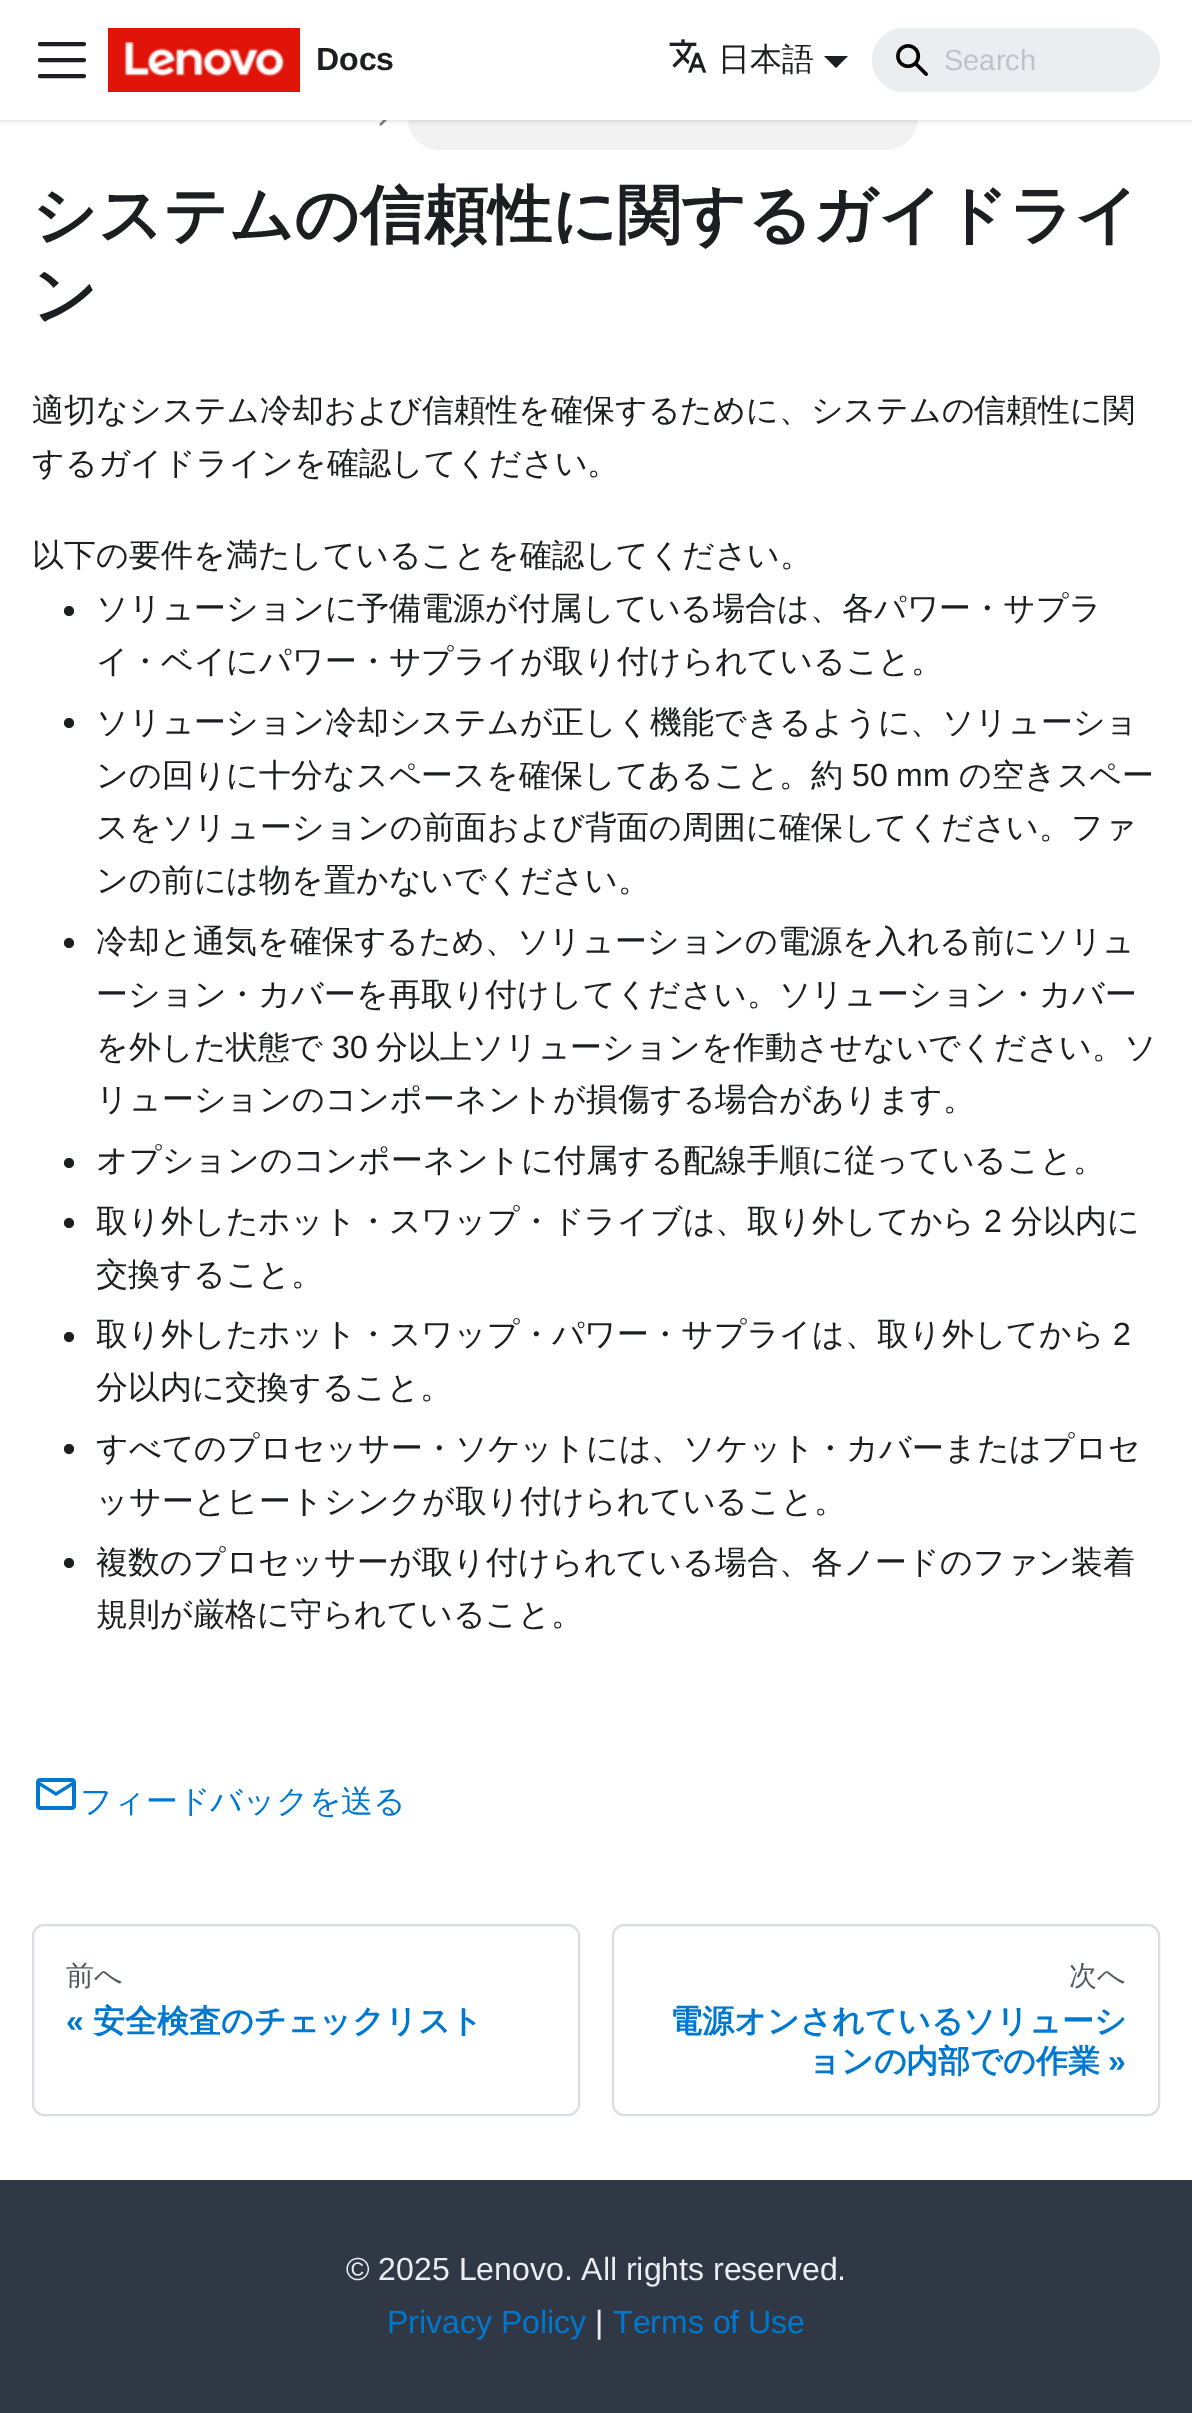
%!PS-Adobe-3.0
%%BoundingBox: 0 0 1192 2413
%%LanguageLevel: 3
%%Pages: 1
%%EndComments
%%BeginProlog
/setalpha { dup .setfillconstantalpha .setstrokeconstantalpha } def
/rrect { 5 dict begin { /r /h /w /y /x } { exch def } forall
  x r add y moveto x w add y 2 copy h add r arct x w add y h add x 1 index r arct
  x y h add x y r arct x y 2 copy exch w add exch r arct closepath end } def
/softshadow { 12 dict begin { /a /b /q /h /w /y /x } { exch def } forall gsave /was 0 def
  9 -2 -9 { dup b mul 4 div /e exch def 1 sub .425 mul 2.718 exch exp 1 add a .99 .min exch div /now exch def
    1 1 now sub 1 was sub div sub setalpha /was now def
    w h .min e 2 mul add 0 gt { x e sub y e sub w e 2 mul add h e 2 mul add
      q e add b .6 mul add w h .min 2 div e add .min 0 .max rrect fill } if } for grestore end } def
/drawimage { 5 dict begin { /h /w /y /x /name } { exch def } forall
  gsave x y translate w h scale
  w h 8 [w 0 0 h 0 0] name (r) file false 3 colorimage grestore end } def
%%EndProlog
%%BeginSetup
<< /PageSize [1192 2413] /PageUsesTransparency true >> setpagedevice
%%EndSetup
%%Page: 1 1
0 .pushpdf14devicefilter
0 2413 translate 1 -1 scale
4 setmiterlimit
1 setgray
0 0 1192 2413 rectfill
(images/4.raw) 379 120 8 6 drawimage
0.949 setgray
408 86 510 64 32 rrect fill
0 setgray
0 2 1192 120 0 2 0.1 softshadow
1 setgray
0 0 1192 120 rectfill
0.11 0.118 0.129 setrgbcolor
4 setlinewidth
1 setlinecap
newpath 40 44 moveto 84 44 lineto 40 60 moveto 84 60 lineto 40 76 moveto 84 76 lineto stroke
(images/1.raw) 108 28 192 64 drawimage
(images/2.raw) 669 39 38 34 drawimage
newpath 824 56 moveto 848 56 lineto 836 68 lineto closepath fill
0.922 0.929 0.941 setrgbcolor
872 28 288 64 32 rrect fill
(images/3.raw) 896 44 32 32 drawimage
0.11 0.118 0.129 setrgbcolor
newpath 69 611 5 0 360 arc closepath fill
newpath 69 723 5 0 360 arc closepath fill
newpath 69 943 5 0 360 arc closepath fill
newpath 69 1163 5 0 360 arc closepath fill
newpath 69 1223 5 0 360 arc closepath fill
newpath 69 1337 5 0 360 arc closepath fill
newpath 69 1449 5 0 360 arc closepath fill
newpath 69 1563 5 0 360 arc closepath fill
(images/5.raw) 36 1778 40 32 drawimage
0.855 0.867 0.882 setrgbcolor
2 setlinewidth
0 setlinecap
33 1925 546 190 11 rrect stroke
613 1925 546 190 11 rrect stroke
0.188 0.22 0.275 setrgbcolor
0 2180 1192 233 rectfill
/LiberationSans-Bold [32 0 0 -32 0 0] selectfont
0.11 0.118 0.129 setrgbcolor
316 70 moveto (Docs) show
/WenQuanYiZenHei-Medium [32 0 0 -32 0 0] selectfont
718 70 moveto (日本語) show
/LiberationSans-Regular [29 0 0 -29 0 0] selectfont
0.745 0.765 0.788 setrgbcolor
944 70 moveto (Search) show
/WenQuanYiZenHei-Bold [64 0 0 -64 0 0] selectfont
0.11 0.118 0.129 setrgbcolor
32 237 moveto (システムの信頼性に関するガイドライ) show
32 317 moveto (ン) show
/WenQuanYiZenHei-Medium [32 0 0 -32 0 0] selectfont
32 421 moveto (適切なシステム冷却および信頼性を確保するために、システムの信頼性に関) show
32 474 moveto (するガイドラインを確認してください。) show
32 566 moveto (以下の要件を満たしていることを確認してください。) show
96 619 moveto (ソリューションに予備電源が付属している場合は、各パワー・サプラ) show
96 672 moveto (イ・ベイにパワー・サプライが取り付けられていること。) show
96 733 moveto (ソリューション冷却システムが正しく機能できるように、ソリューショ) show
96 786 moveto (ンの回りに十分なスペースを確保してあること。約) show
/LiberationSans-Regular [32 0 0 -32 0 0] selectfont
852 786 moveto (50 mm) show
/WenQuanYiZenHei-Medium [32 0 0 -32 0 0] selectfont
959 786 moveto (の空きスペー) show
96 838 moveto (スをソリューションの前面および背面の周囲に確保してください。ファ) show
96 891 moveto (ンの前には物を置かないでください。) show
96 952 moveto (冷却と通気を確保するため、ソリューションの電源を入れる前にソリュ) show
96 1005 moveto (ーション・カバーを再取り付けしてください。ソリューション・カバー) show
96 1058 moveto (を外した状態で) show
/LiberationSans-Regular [32 0 0 -32 0 0] selectfont
332 1058 moveto (30) show
/WenQuanYiZenHei-Medium [32 0 0 -32 0 0] selectfont
376 1058 moveto (分以上ソリューションを作動させないでください。ソ) show
96 1110 moveto (リューションのコンポーネントが損傷する場合があります。) show
96 1171 moveto (オプションのコンポーネントに付属する配線手順に従っていること。) show
96 1232 moveto (取り外したホット・スワップ・ドライブは、取り外してから) show
/LiberationSans-Regular [32 0 0 -32 0 0] selectfont
984 1232 moveto (2) show
/WenQuanYiZenHei-Medium [32 0 0 -32 0 0] selectfont
1011 1232 moveto (分以内に) show
96 1285 moveto (交換すること。) show
96 1345 moveto (取り外したホット・スワップ・パワー・サプライは、取り外してから) show
/LiberationSans-Regular [32 0 0 -32 0 0] selectfont
1113 1345 moveto (2) show
/WenQuanYiZenHei-Medium [32 0 0 -32 0 0] selectfont
96 1398 moveto (分以内に交換すること。) show
96 1459 moveto (すべてのプロセッサー・ソケットには、ソケット・カバーまたはプロセ) show
96 1512 moveto (ッサーとヒートシンクが取り付けられていること。) show
96 1573 moveto (複数のプロセッサーが取り付けられている場合、各ノードのファン装着) show
96 1625 moveto (規則が厳格に守られていること。) show
0 0.471 0.816 setrgbcolor
80 1812 moveto (フィードバックを送る) show
/WenQuanYiZenHei-Medium [28 0 0 -28 0 0] selectfont
0.322 0.345 0.376 setrgbcolor
66 1985 moveto (前へ) show
/LiberationSans-Bold [32 0 0 -32 0 0] selectfont
0 0.471 0.816 setrgbcolor
66 2032 moveto («) show
/WenQuanYiZenHei-Bold [32 0 0 -32 0 0] selectfont
93 2032 moveto (安全検査のチェックリスト) show
/WenQuanYiZenHei-Medium [28 0 0 -28 0 0] selectfont
0.322 0.345 0.376 setrgbcolor
1069 1985 moveto (次へ) show
/WenQuanYiZenHei-Bold [32 0 0 -32 0 0] selectfont
0 0.471 0.816 setrgbcolor
670 2032 moveto (電源オンされているソリューシ) show
808 2072 moveto (ョンの内部での作業) show
/LiberationSans-Bold [32 0 0 -32 0 0] selectfont
1108 2072 moveto (») show
/LiberationSans-Regular [32 0 0 -32 0 0] selectfont
0.922 0.929 0.941 setrgbcolor
346 2280 moveto (© 2025 Lenovo. All rights reserved.) show
0 0.471 0.816 setrgbcolor
387 2333 moveto (Privacy Policy) show
0.922 0.929 0.941 setrgbcolor
595 2333 moveto (|) show
0 0.471 0.816 setrgbcolor
613 2333 moveto (Terms of Use) show
.poppdf14devicefilter showpage
%%EOF
